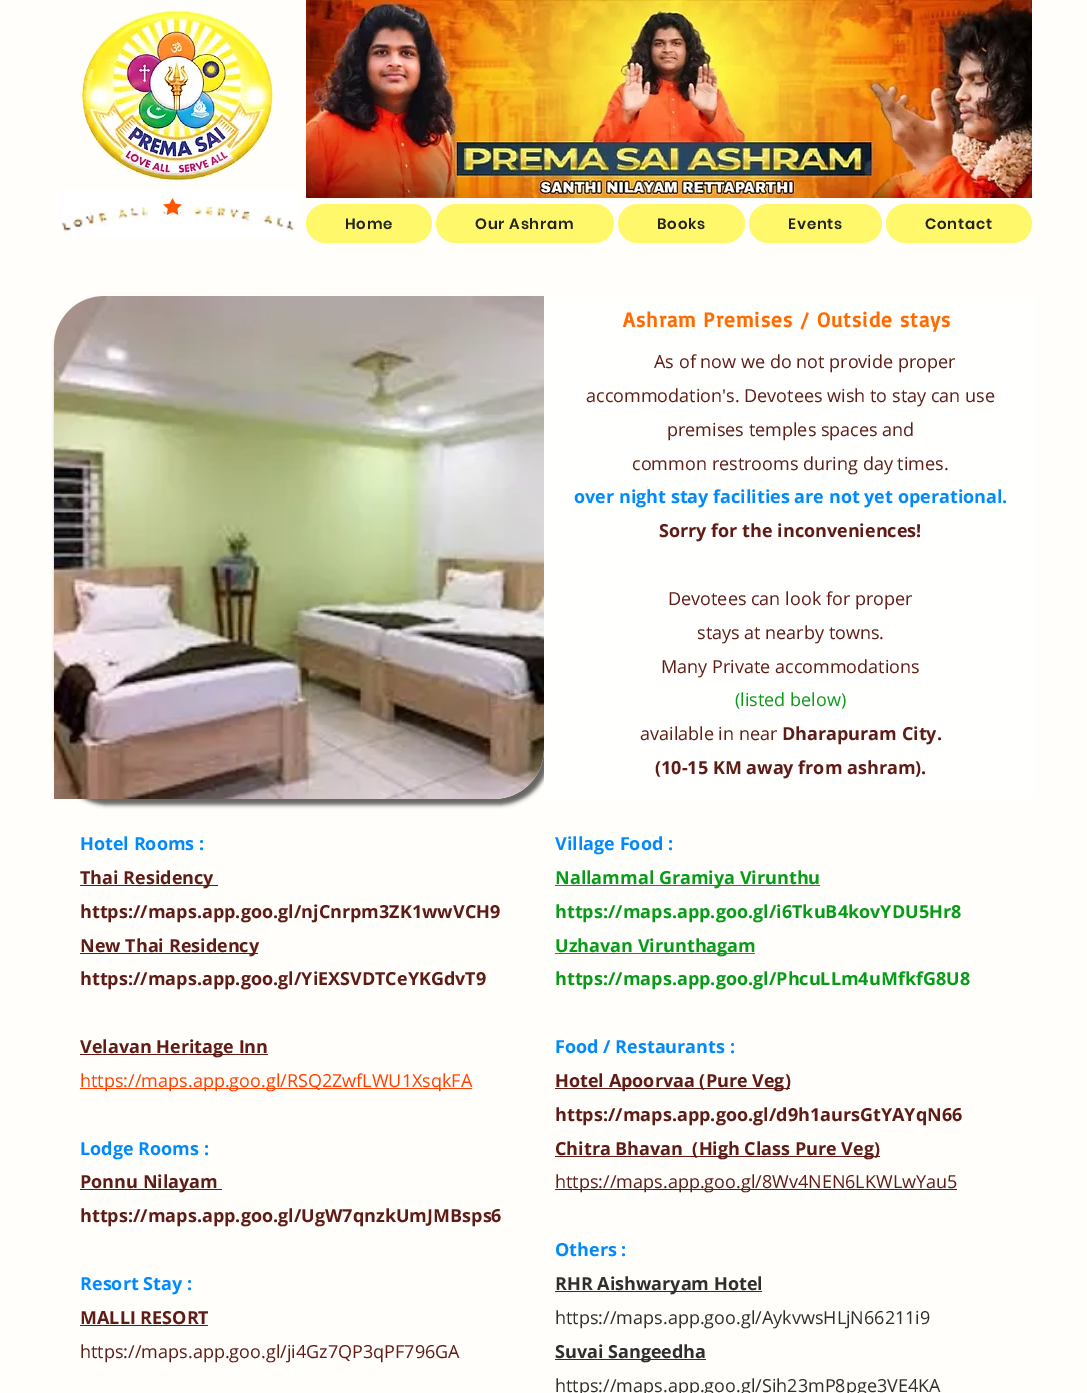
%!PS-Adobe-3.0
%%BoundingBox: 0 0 1087 1393
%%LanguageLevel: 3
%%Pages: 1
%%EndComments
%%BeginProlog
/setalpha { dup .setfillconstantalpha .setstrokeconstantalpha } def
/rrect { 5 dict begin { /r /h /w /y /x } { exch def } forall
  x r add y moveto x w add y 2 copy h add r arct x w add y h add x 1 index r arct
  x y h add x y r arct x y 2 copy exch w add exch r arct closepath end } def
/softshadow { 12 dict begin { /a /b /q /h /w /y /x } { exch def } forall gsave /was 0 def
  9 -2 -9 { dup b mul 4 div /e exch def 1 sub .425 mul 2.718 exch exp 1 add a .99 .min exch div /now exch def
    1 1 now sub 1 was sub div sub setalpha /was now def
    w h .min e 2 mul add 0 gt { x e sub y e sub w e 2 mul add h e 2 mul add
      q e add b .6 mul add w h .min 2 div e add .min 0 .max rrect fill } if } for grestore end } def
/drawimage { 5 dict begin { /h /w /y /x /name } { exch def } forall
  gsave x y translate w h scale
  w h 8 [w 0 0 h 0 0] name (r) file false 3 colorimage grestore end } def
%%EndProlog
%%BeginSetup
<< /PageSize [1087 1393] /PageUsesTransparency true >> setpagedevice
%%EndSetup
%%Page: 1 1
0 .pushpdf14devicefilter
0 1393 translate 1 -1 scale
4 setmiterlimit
1 0.996 0.98 setrgbcolor
0 0 1087 1393 rectfill
(images/1.raw) 82 7 191 177 drawimage
(images/2.raw) 306 0 726 198 drawimage
(images/3.raw) 57 189 241 48 drawimage
(images/4.raw) 163 198 19 17 drawimage
1 0.973 0.42 setrgbcolor
306 204 126 39 19.5 rrect fill
436 204 178 39 19.5 rrect fill
618 204 127 39 19.5 rrect fill
749 204 133 39 19.5 rrect fill
886 204 146 39 19.5 rrect fill
0 setgray
56 298 494 507 52 2 0.6 softshadow
1 0.996 0.98 setrgbcolor
94 294 418 2 rectfill
(images/5.raw) 54 296 490 503 drawimage
1 1 0.996 setrgbcolor
544 296 490 503 rectfill
0.373 0.106 0.086 setrgbcolor
80 885 138 1 rectfill
80 953 178 1 rectfill
80 1054 188 1 rectfill
1 0.251 0 setrgbcolor
80 1088 392 1 rectfill
0.373 0.106 0.086 setrgbcolor
80 1189 142 1 rectfill
80 1325 128 1 rectfill
0.027 0.608 0.094 setrgbcolor
555 885 265 1 rectfill
555 953 200 1 rectfill
0.373 0.106 0.086 setrgbcolor
555 1088 235 1 rectfill
555 1156 325 1 rectfill
555 1189 402 1 rectfill
0.184 0.18 0.18 setrgbcolor
555 1291 207 1 rectfill
555 1359 151 1 rectfill
/Poppins-SemiBold [15 0 0 -15 0 0] selectfont
0.141 0.137 0.137 setrgbcolor
345 229 moveto 0.75 0 (Home) ashow
475 229 moveto 0.75 0 (Our Ashram) ashow
657 229 moveto 0.75 0 (Books) ashow
788 229 moveto 0.75 0 (Events) ashow
925 229 moveto 0.75 0 (Contact) ashow
/Basic-Bold [21 0 0 -21 0 0] selectfont
1 0.42 0 setrgbcolor
623 327 moveto 1.05 0 (Ashram Premises / Outside stays) ashow
/OpenSans-Regular [18 0 0 -18 0 0] selectfont
0.373 0.106 0.086 setrgbcolor
654 368 moveto (As of now we do not provide proper) show
586 402 moveto (accommodation's. Devotees wish to stay can use) show
667 436 moveto (premises temples spaces and) show
632 470 moveto (common restrooms during day times.) show
/OpenSans-Bold [18 0 0 -18 0 0] selectfont
0 0.541 0.988 setrgbcolor
574 503 moveto (over night stay facilities are not yet operational.) show
0.373 0.106 0.086 setrgbcolor
659 537 moveto (Sorry for the inconveniences!) show
/OpenSans-Regular [18 0 0 -18 0 0] selectfont
668 605 moveto (Devotees can look for proper) show
697 639 moveto (stays at nearby towns.) show
661 673 moveto (Many Private accommodations) show
0.027 0.608 0.094 setrgbcolor
735 706 moveto (\(listed below\)) show
0.373 0.106 0.086 setrgbcolor
640 740 moveto (available in near) show
/OpenSans-Bold [18 0 0 -18 0 0] selectfont
782 740 moveto (Dharapuram City.) show
655 774 moveto (\(10-15 KM away from ashram\).) show
0 0.541 0.988 setrgbcolor
80 850 moveto (Hotel Rooms :) show
0.373 0.106 0.086 setrgbcolor
80 884 moveto (Thai Residency) show
80 918 moveto (https://maps.app.goo.gl/njCnrpm3ZK1wwVCH9) show
80 952 moveto (New Thai Residency) show
80 985 moveto (https://maps.app.goo.gl/YiEXSVDTCeYKGdvT9) show
80 1053 moveto (Velavan Heritage Inn) show
/OpenSans-Regular [18 0 0 -18 0 0] selectfont
1 0.251 0 setrgbcolor
80 1087 moveto (https://maps.app.goo.gl/RSQ2ZwfLWU1XsqkFA) show
/OpenSans-Bold [18 0 0 -18 0 0] selectfont
0 0.541 0.988 setrgbcolor
80 1155 moveto (Lodge Rooms :) show
0.373 0.106 0.086 setrgbcolor
80 1188 moveto (Ponnu Nilayam) show
80 1222 moveto (https://maps.app.goo.gl/UgW7qnzkUmJMBsps6) show
0 0.541 0.988 setrgbcolor
80 1290 moveto (Resort Stay :) show
0.373 0.106 0.086 setrgbcolor
80 1324 moveto (MALLI RESORT) show
/OpenSans-Regular [18 0 0 -18 0 0] selectfont
80 1358 moveto (https://maps.app.goo.gl/ji4Gz7QP3qPF796GA) show
/OpenSans-Bold [18 0 0 -18 0 0] selectfont
0 0.541 0.988 setrgbcolor
555 850 moveto (Village Food :) show
0.027 0.608 0.094 setrgbcolor
555 884 moveto (Nallammal Gramiya Virunthu) show
555 918 moveto (https://maps.app.goo.gl/i6TkuB4kovYDU5Hr8) show
555 952 moveto (Uzhavan Virunthagam) show
555 985 moveto (https://maps.app.goo.gl/PhcuLLm4uMfkfG8U8) show
0 0.541 0.988 setrgbcolor
555 1053 moveto (Food / Restaurants :) show
0.373 0.106 0.086 setrgbcolor
555 1087 moveto (Hotel Apoorvaa \(Pure Veg\)) show
555 1121 moveto (https://maps.app.goo.gl/d9h1aursGtYAYqN66) show
555 1155 moveto (Chitra Bhavan  \(High Class Pure Veg\)) show
/OpenSans-Regular [18 0 0 -18 0 0] selectfont
555 1188 moveto (https://maps.app.goo.gl/8Wv4NEN6LKWLwYau5) show
/OpenSans-Bold [18 0 0 -18 0 0] selectfont
0 0.541 0.988 setrgbcolor
555 1256 moveto (Others :) show
0.184 0.18 0.18 setrgbcolor
555 1290 moveto (RHR Aishwaryam Hotel) show
/OpenSans-Regular [18 0 0 -18 0 0] selectfont
555 1324 moveto (https://maps.app.goo.gl/AykvwsHLjN66211i9) show
/OpenSans-Bold [18 0 0 -18 0 0] selectfont
555 1358 moveto (Suvai Sangeedha) show
/OpenSans-Regular [18 0 0 -18 0 0] selectfont
555 1392 moveto (https://maps.app.goo.gl/Sih23mP8pge3VE4KA) show
.poppdf14devicefilter showpage
%%EOF
